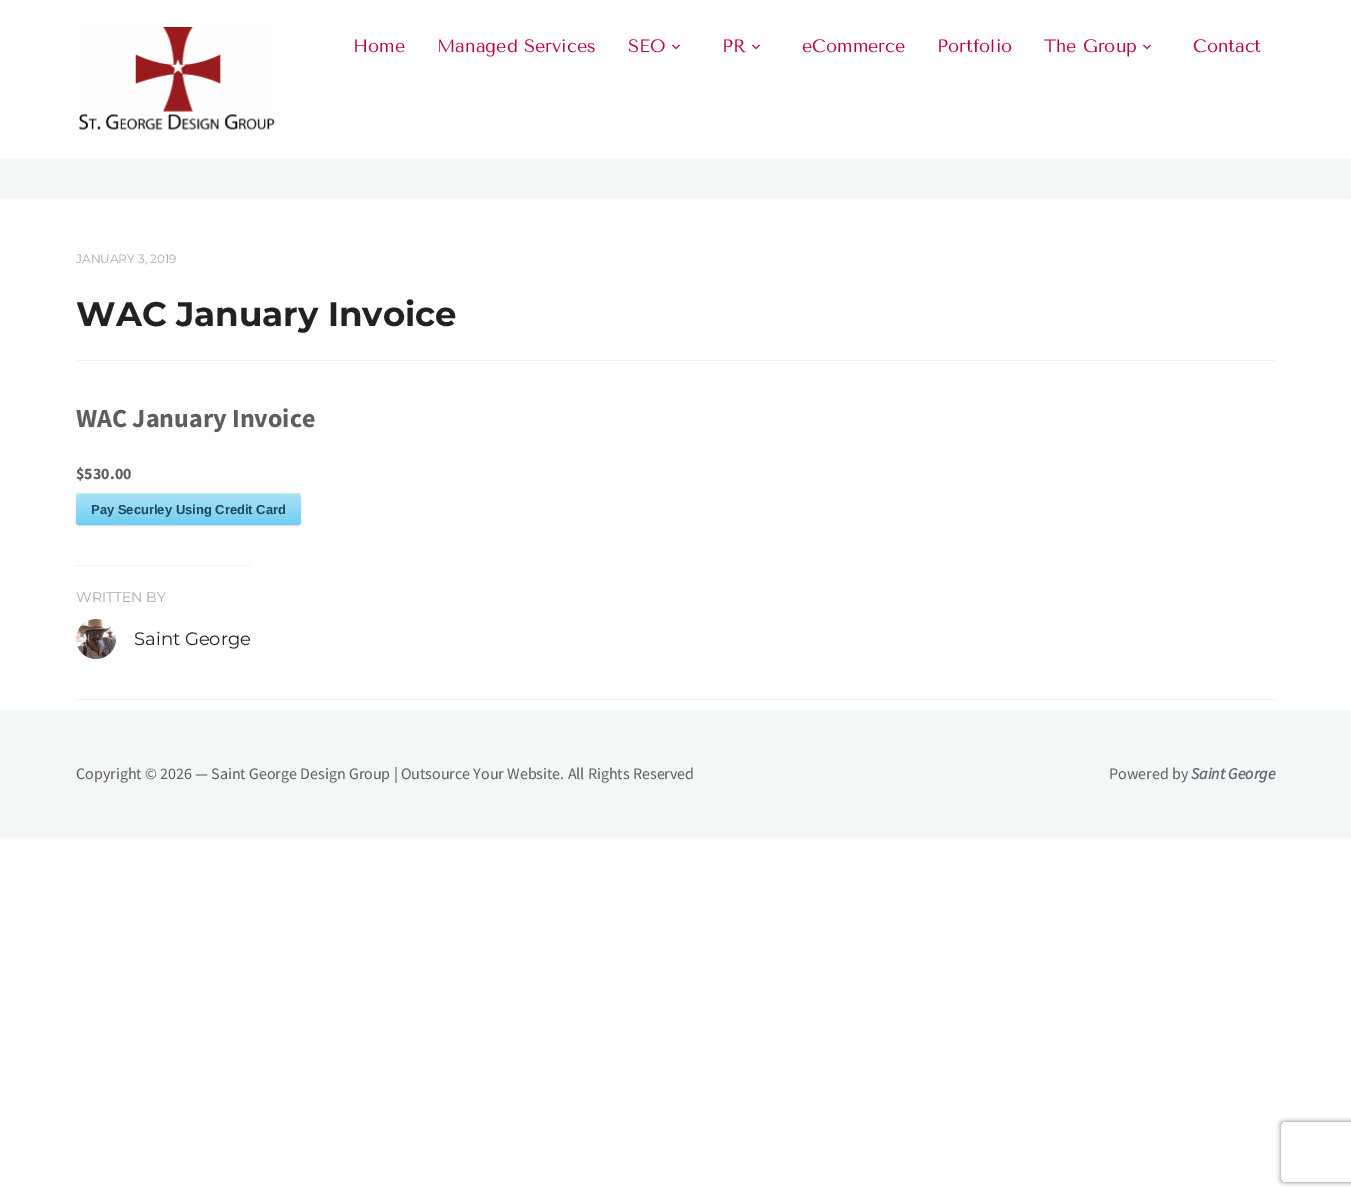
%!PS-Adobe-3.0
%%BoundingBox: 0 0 1351 1196
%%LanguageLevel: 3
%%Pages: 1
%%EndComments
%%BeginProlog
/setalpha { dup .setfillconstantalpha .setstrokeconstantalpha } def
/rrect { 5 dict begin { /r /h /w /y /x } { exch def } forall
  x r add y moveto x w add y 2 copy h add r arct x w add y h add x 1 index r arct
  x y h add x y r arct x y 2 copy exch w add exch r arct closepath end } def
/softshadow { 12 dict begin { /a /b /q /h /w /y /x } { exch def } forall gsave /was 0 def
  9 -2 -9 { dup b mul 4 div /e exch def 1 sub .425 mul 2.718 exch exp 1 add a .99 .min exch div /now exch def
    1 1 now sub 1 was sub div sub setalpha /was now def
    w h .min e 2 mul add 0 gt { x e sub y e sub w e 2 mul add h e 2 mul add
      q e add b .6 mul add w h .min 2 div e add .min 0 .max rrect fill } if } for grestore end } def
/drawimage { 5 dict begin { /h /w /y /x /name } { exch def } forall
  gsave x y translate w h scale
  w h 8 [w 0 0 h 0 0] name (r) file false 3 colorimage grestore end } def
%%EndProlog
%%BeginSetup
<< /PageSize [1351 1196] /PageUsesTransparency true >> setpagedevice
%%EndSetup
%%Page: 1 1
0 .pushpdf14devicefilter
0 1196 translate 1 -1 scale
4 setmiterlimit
1 setgray
0 0 1351 1196 rectfill
(images/1.raw) 79 27 196 103 drawimage
(images/2.raw) 671 44 10 6 drawimage
(images/2.raw) 751 44 10 6 drawimage
(images/2.raw) 1142 44 10 6 drawimage
0.957 0.969 0.973 setrgbcolor
0 159 1351 40 rectfill
0.937 setgray
76 360 1200 1 rectfill
0.839 setgray
76 494 225 32 4 0.5 1 softshadow
gsave 76 493 225 32 4 rrect clip newpath
<< /ShadingType 2 /ColorSpace /DeviceRGB /Coords [76 493 76 525] /Extend [true true] /Function << /FunctionType 2 /Domain [0 1] /C0 [0.671 0.894 0.973] /C1 [0.435 0.808 0.953] /N 1 >> >> shfill grestore
0.753 0.922 0.98 setrgbcolor
newpath 80 494 moveto 297 494 lineto 299 494 301 496 301 498 curveto 301 495 300 493 297 493 curveto 80 493 lineto 77 493 76 495 76 498 curveto 76 496 78 494 80 494 curveto closepath fill
0.937 setgray
76 565 175 1 rectfill
(images/3.raw) 76 619 40 40 drawimage
76 699 1200 1 rectfill
0.957 0.969 0.973 setrgbcolor
0 710 1351 128 rectfill
gsave
newpath 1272 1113 moveto 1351 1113 lineto 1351 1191 lineto 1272 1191 lineto closepath 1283 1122 moveto 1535 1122 lineto 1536 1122 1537 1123 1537 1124 curveto 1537 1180 lineto 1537 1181 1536 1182 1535 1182 curveto 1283 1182 lineto 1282 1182 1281 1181 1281 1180 curveto 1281 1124 lineto 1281 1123 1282 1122 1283 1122 curveto closepath eoclip newpath
0.502 setgray
1281 1122 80 60 2 2.5 1 softshadow
grestore
/TenorSans-Regular [18 0 0 -18 0 0] selectfont
0.749 0 0.2 setrgbcolor
353 52 moveto (Home) show
437 52 moveto (Managed Services) show
628 52 moveto (SEO) show
722 52 moveto (PR) show
802 52 moveto (eCommerce) show
937 52 moveto (Portfolio) show
1044 52 moveto (The Group) show
1193 52 moveto (Contact) show
/Montserrat-Regular [12 0 0 -12 0 0] selectfont
0.667 setgray
76 263 moveto (JANUARY 3, 2019) show
/Montserrat-Bold [34 0 0 -34 0 0] selectfont
0.133 setgray
76 326 moveto (WAC January Invoice) show
/SourceSansPro-Bold [26 0 0 -26 0 0] selectfont
0.373 0.369 0.369 setrgbcolor
76 427 moveto (WAC January Invoice) show
/SourceSansPro-Bold [16 0 0 -16 0 0] selectfont
76 479 moveto ($530.00) show
/LiberationSans-Bold [13 0 0 -13 0 0] selectfont
0.118 0.275 0.341 setrgbcolor
91 514 moveto (Pay Securley Using Credit Card) show
/Montserrat-Regular [14 0 0 -14 0 0] selectfont
0.667 setgray
76 602 moveto (WRITTEN BY) show
/Montserrat-Regular [18 0 0 -18 0 0] selectfont
0.133 setgray
134 645 moveto (Saint George) show
/SourceSansPro-Regular [16 0 0 -16 0 0] selectfont
0.373 0.369 0.369 setrgbcolor
76 779 moveto (Copyright © 2026 — Saint George Design Group | Outsource Your Website. All Rights Reserved) show
1109 779 moveto (Powered by) show
/SourceSansPro-BoldItalic [16 0 0 -16 0 0] selectfont
0.392 0.42 0.431 setrgbcolor
1191 779 moveto (Saint George) show
.poppdf14devicefilter showpage
%%EOF
